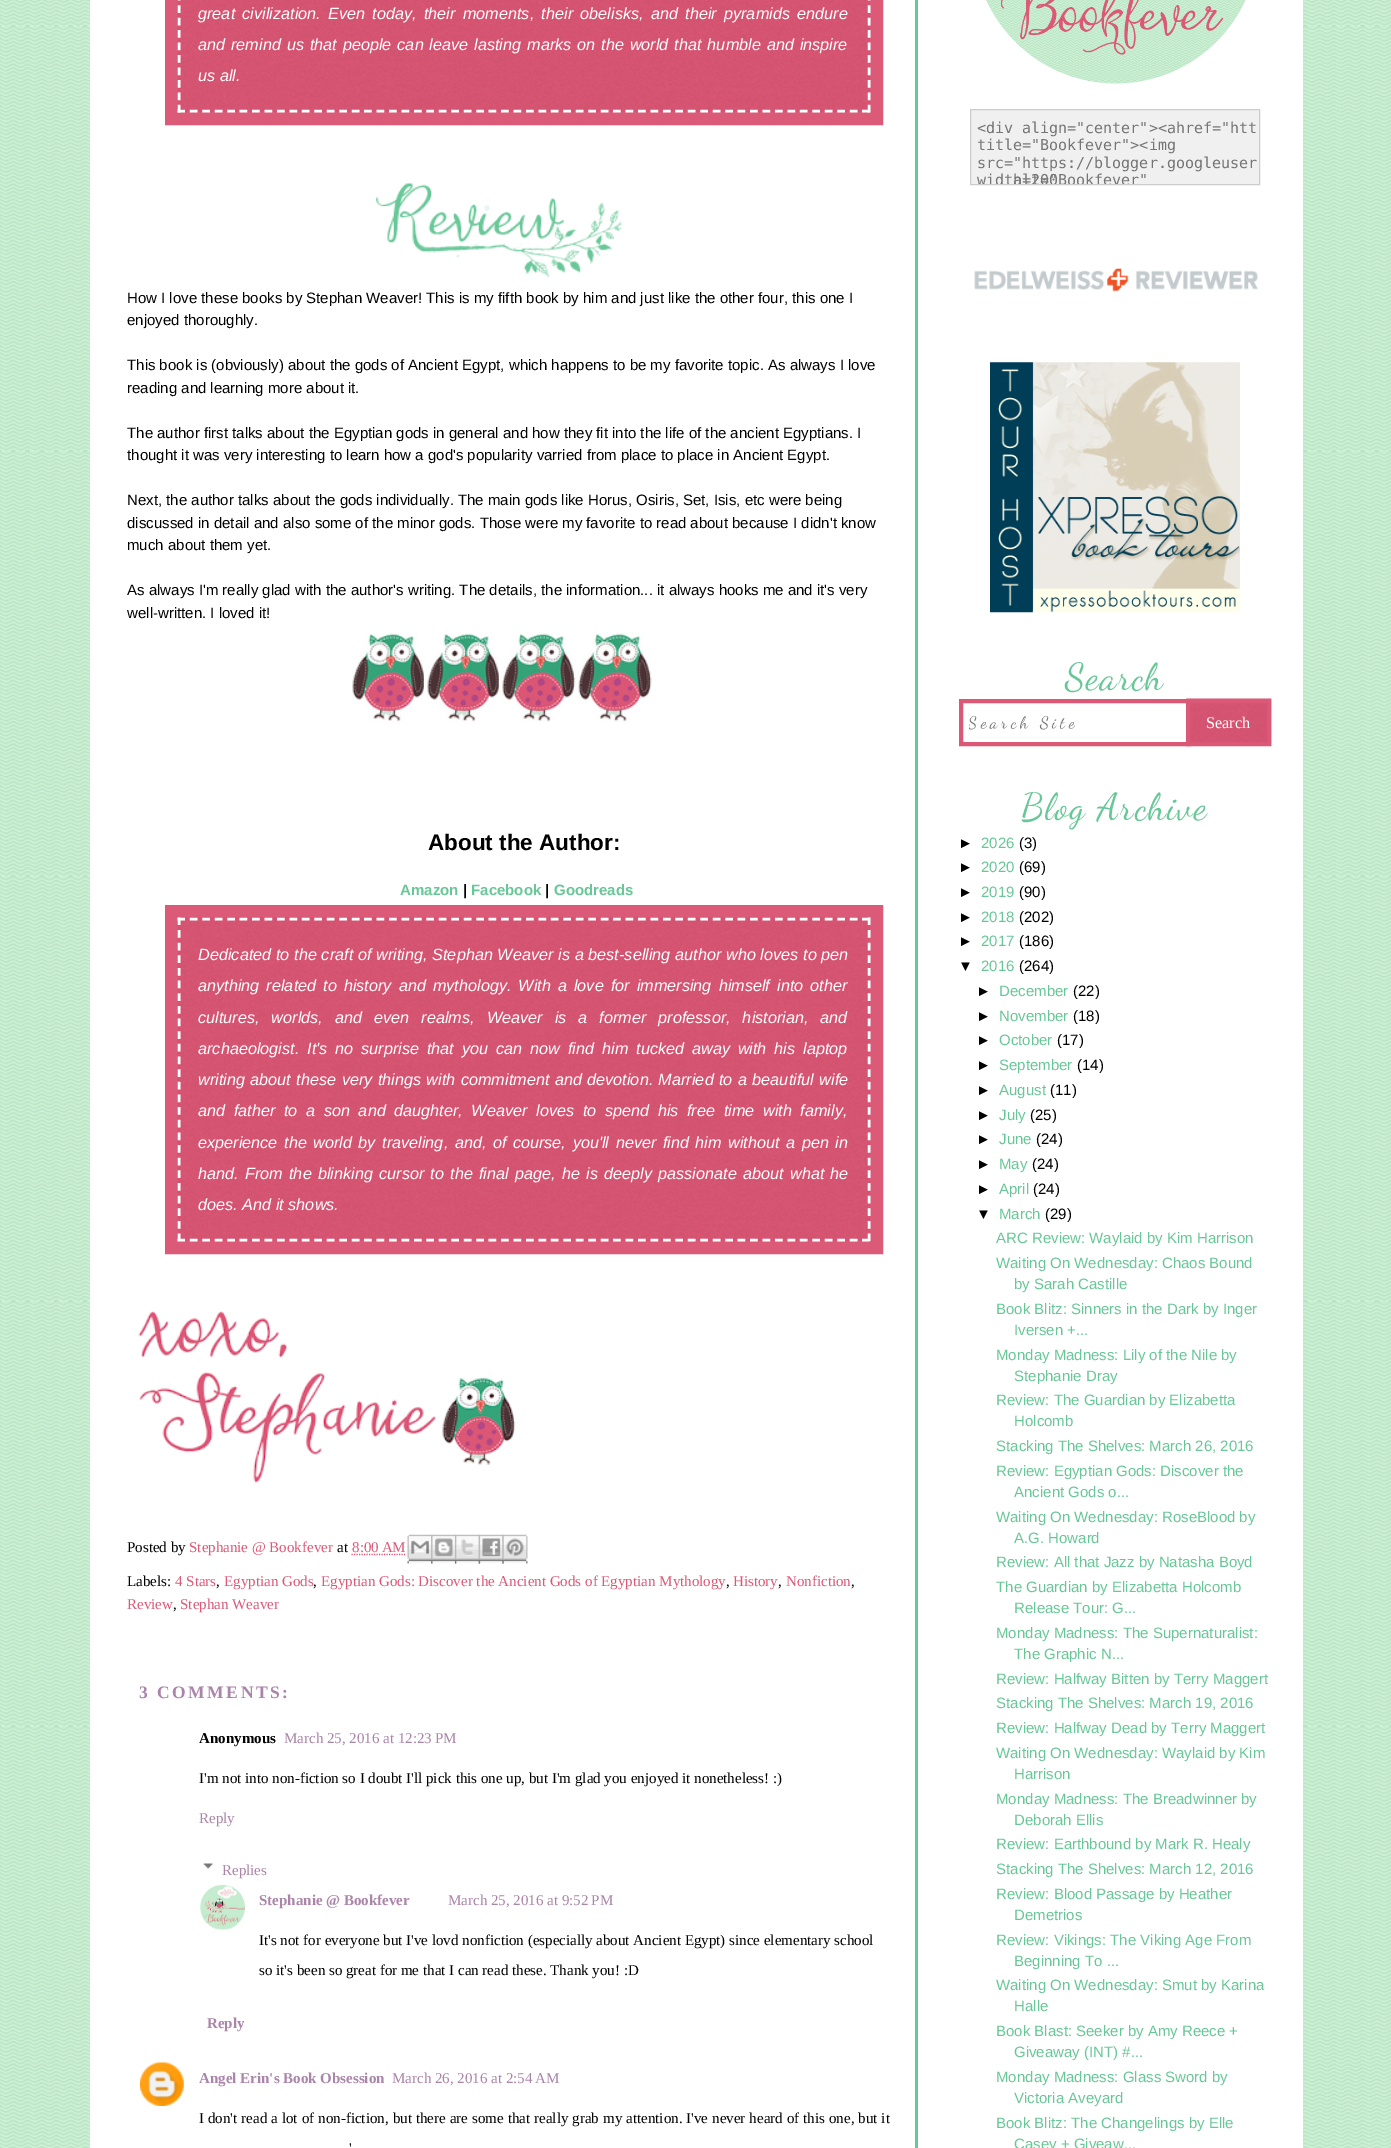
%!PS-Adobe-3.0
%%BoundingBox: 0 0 1391 2148
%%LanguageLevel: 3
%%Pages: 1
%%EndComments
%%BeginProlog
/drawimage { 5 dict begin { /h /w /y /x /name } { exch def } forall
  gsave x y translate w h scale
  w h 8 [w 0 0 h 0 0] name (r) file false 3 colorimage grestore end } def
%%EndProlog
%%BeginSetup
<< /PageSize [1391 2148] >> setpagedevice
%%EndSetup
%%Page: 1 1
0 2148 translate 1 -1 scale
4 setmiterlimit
1 setgray
0 0 1391 2148 rectfill
(images/1.raw) 0 0 1391 2148 drawimage
90 0 1213 2148 rectfill
0.408 0.78 0.592 setrgbcolor
915 0 3 2148 rectfill
0.855 0.353 0.471 setrgbcolor
13 setlinewidth
171.5 -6.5 705 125 rectstroke
(images/2.raw) 177 0 693 112 drawimage
1 setgray
2.5 setlinewidth
[7.5 4.96] 0 setdash
newpath 869 -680 moveto 869 112.5 lineto stroke
[7.5 4.95] 0 setdash
newpath 177.5 111 moveto 870 111 lineto stroke
[7.5 4.96] 0 setdash
newpath 179 -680 moveto 179 112.5 lineto stroke
(images/3.raw) 376 183 247 95 drawimage
(images/4.raw) 352 632 300 90 drawimage
0.855 0.353 0.471 setrgbcolor
13 setlinewidth
[] 0 setdash
171.5 911.5 705 336 rectstroke
(images/5.raw) 177 917 693 324 drawimage
1 setgray
2.5 setlinewidth
[7.5 4.95] 0 setdash
newpath 177.5 919 moveto 870 919 lineto stroke
[7.5 5.15] 0 setdash
newpath 869 917.5 moveto 869 1241 lineto stroke
[7.5 4.95] 0 setdash
newpath 177.5 1240 moveto 870 1240 lineto stroke
[7.5 5.15] 0 setdash
newpath 179 917.5 moveto 179 1241 lineto stroke
(images/6.raw) 138 1311 378 172 drawimage
0.863 0.345 0.467 setrgbcolor
1.2 setlinewidth
[1.25 1.25] 0 setdash
newpath 351.5 1554.5 moveto 405.5 1554.5 lineto stroke
(images/7.raw) 407 1534 26 30 drawimage
(images/8.raw) 431 1534 26 30 drawimage
(images/9.raw) 455 1534 25 30 drawimage
(images/10.raw) 478 1534 26 30 drawimage
(images/11.raw) 502 1534 26 30 drawimage
(images/12.raw) 203 1863 10 6 drawimage
(images/13.raw) 200 1884 45 46 drawimage
(images/14.raw) 140 2062 44 44 drawimage
(images/15.raw) 986 0 260 84 drawimage
0.941 setgray
newpath 970.5 109.5 moveto 1259.5 109.5 lineto 1259.5 184.5 lineto 970.5 184.5 lineto closepath gsave fill grestore
0.8 setgray
1 setlinewidth
[] 0 setdash
stroke
(images/16.raw) 974 268 284 24 drawimage
(images/17.raw) 990 362 250 251 drawimage
0.863 0.345 0.467 setrgbcolor
4 setlinewidth
961 701 228 43 rectstroke
(images/18.raw) 1186 698 86 48 drawimage
1188 701 81 43 rectstroke
/LiberationSans-Italic [16.25 0 0 -16.25 0 0] selectfont
1 setgray
198 19 moveto 2.75 0 32 (great civilization. Even today, their moments, their obelisks, and their pyramids endure) widthshow
198 50 moveto 1.4 0 32 (and remind us that people can leave lasting marks on the world that humble and inspire) widthshow
198 81 moveto (us all.) show
/LiberationSans-Regular [15 0 0 -15 0 0] selectfont
0 setgray
127 303 moveto (How I love these books by Stephan Weaver! This is my fifth book by him and just like the other four, this one I) show
127 325 moveto (enjoyed thoroughly.) show
127 370 moveto (This book is \(obviously\) about the gods of Ancient Egypt, which happens to be my favorite topic. As always I love) show
127 393 moveto (reading and learning more about it.) show
127 438 moveto (The author first talks about the Egyptian gods in general and how they fit into the life of the ancient Egyptians. I) show
127 460 moveto (thought it was very interesting to learn how a god's popularity varried from place to place in Ancient Egypt.) show
127 505 moveto (Next, the author talks about the gods individually. The main gods like Horus, Osiris, Set, Isis, etc were being) show
127 528 moveto (discussed in detail and also some of the minor gods. Those were my favorite to read about because I didn't know) show
127 550 moveto (much about them yet.) show
127 595 moveto (As always I'm really glad with the author's writing. The details, the information... it always hooks me and it's very) show
127 618 moveto (well-written. I loved it!) show
/LiberationSans-Bold [22.5 0 0 -22.5 0 0] selectfont
428 850 moveto (About the Author:) show
/LiberationSans-Bold [15 0 0 -15 0 0] selectfont
0.408 0.78 0.592 setrgbcolor
400 895 moveto (Amazon) show
0 setgray
463 895 moveto (|) show
0.408 0.78 0.592 setrgbcolor
471 895 moveto (Facebook) show
0 setgray
545 895 moveto (|) show
0.408 0.78 0.592 setrgbcolor
554 895 moveto (Goodreads) show
/LiberationSans-Italic [16.25 0 0 -16.25 0 0] selectfont
1 setgray
198 960 moveto 0.2 0 32 (Dedicated to the craft of writing, Stephan Weaver is a best-selling author who loves to pen) widthshow
198 991 moveto 2.5 0 32 (anything related to history and mythology. With a love for immersing himself into other) widthshow
198 1023 moveto 7.5 0 32 (cultures, worlds, and even realms, Weaver is a former professor, historian, and) widthshow
198 1054 moveto 3.4 0 32 (archaeologist. It's no surprise that you can now find him tucked away with his laptop) widthshow
198 1085 moveto 0.9 0 32 (writing about these very things with commitment and devotion. Married to a beautiful wife) widthshow
198 1116 moveto 4.1 0 32 (and father to a son and daughter, Weaver loves to spend his free time with family,) widthshow
198 1148 moveto 2 0 32 (experience the world by traveling, and, of course, you'll never find him without a pen in) widthshow
198 1179 moveto 1.7 0 32 (hand. From the blinking cursor to the final page, he is deeply passionate about what he) widthshow
198 1210 moveto (does. And it shows.) show
/LiberationSerif-Regular [15 0 0 -15 0 0] selectfont
0 setgray
127 1552 moveto (Posted by) show
0.863 0.345 0.467 setrgbcolor
189 1552 moveto (Stephanie @ Bookfever) show
0 setgray
337 1552 moveto (at) show
0.863 0.345 0.467 setrgbcolor
352 1552 moveto (8:00 AM) show
0 setgray
127 1586 moveto (Labels:) show
0.863 0.345 0.467 setrgbcolor
175 1586 moveto (4 Stars) show
0 setgray
216 1586 moveto (,) show
0.863 0.345 0.467 setrgbcolor
224 1586 moveto (Egyptian Gods) show
0 setgray
313 1586 moveto (,) show
0.863 0.345 0.467 setrgbcolor
321 1586 moveto (Egyptian Gods: Discover the Ancient Gods of Egyptian Mythology) show
0 setgray
726 1586 moveto (,) show
0.863 0.345 0.467 setrgbcolor
733 1586 moveto (History) show
0 setgray
778 1586 moveto (,) show
0.863 0.345 0.467 setrgbcolor
786 1586 moveto (Nonfiction) show
0 setgray
851 1586 moveto (,) show
0.863 0.345 0.467 setrgbcolor
127 1609 moveto (Review) show
0 setgray
173 1609 moveto (,) show
0.863 0.345 0.467 setrgbcolor
180 1609 moveto (Stephan Weaver) show
/LiberationSerif-Bold [17.5 0 0 -17.5 0 0] selectfont
0.667 0.518 0.663 setrgbcolor
139 1698 moveto 2.5 0 (3 COMMENTS:) ashow
/LiberationSerif-Bold [15 0 0 -15 0 0] selectfont
0 setgray
199 1743 moveto (Anonymous) show
/LiberationSerif-Regular [15 0 0 -15 0 0] selectfont
0.667 0.518 0.663 setrgbcolor
284 1743 moveto (March 25, 2016 at 12:23 PM) show
0 setgray
199 1783 moveto (I'm not into non-fiction so I doubt I'll pick this one up, but I'm glad you enjoyed it nonetheless! :\)) show
0.667 0.518 0.663 setrgbcolor
199 1823 moveto (Reply) show
222 1875 moveto (Replies) show
/LiberationSerif-Bold [15 0 0 -15 0 0] selectfont
259 1905 moveto (Stephanie @ Bookfever) show
/LiberationSerif-Regular [15 0 0 -15 0 0] selectfont
448 1905 moveto (March 25, 2016 at 9:52 PM) show
0 setgray
259 1945 moveto (It's not for everyone but I've lovd nonfiction \(especially about Ancient Egypt\) since elementary school) show
259 1975 moveto (so it's been so great for me that I can read these. Thank you! :D) show
/LiberationSerif-Bold [15 0 0 -15 0 0] selectfont
0.667 0.518 0.663 setrgbcolor
207 2028 moveto (Reply) show
199 2083 moveto (Angel Erin's Book Obsession) show
/LiberationSerif-Regular [15 0 0 -15 0 0] selectfont
392 2083 moveto (March 26, 2016 at 2:54 AM) show
0 setgray
199 2123 moveto 0.25 0 32 (I don't read a lot of non-fiction, but there are some that really grab my attention. I've never heard of this one, but it) widthshow
349 2153 moveto (') show
/DejaVuSansMono-Regular [15 0 0 -15 0 0] selectfont
0.459 setgray
977 133 moveto (<div align="center"><ahref="htt) show
977 150 moveto (title="Bookfever"><img) show
977 168 moveto (src="https://blogger.googleuser) show
gsave
971 110 288 74 rectclip
977 185 moveto (width=200) show
1013 185 moveto (alt="Bookfever") show
grestore
/DancingScript-Regular [37.5 0 0 -37.5 0 0] selectfont
0.408 0.78 0.592 setrgbcolor
1065 689 moveto 1.25 0 (Search) ashow
gsave
969 713 212 20 rectclip
/DancingScript-Regular [16.75 0 0 -16.75 0 0] selectfont
0.459 setgray
968 728 moveto 3.75 0 (Search Site) ashow
grestore
/LiberationSerif-Regular [16.25 0 0 -16.25 0 0] selectfont
1 setgray
1206 728 moveto (Search) show
/DancingScript-Regular [37.5 0 0 -37.5 0 0] selectfont
0.408 0.78 0.592 setrgbcolor
1021 819 moveto 1.25 0 (Blog Archive) ashow
/LiberationSans-Regular [15 0 0 -15 0 0] selectfont
0 setgray
958 848 moveto (►) show
0.408 0.78 0.592 setrgbcolor
981 848 moveto (2026) show
0 setgray
1019 848 moveto (\(3\)) show
958 872 moveto (►) show
0.408 0.78 0.592 setrgbcolor
981 872 moveto (2020) show
0 setgray
1019 872 moveto (\(69\)) show
958 897 moveto (►) show
0.408 0.78 0.592 setrgbcolor
981 897 moveto (2019) show
0 setgray
1019 897 moveto (\(90\)) show
958 922 moveto (►) show
0.408 0.78 0.592 setrgbcolor
981 922 moveto (2018) show
0 setgray
1019 922 moveto (\(202\)) show
958 946 moveto (►) show
0.408 0.78 0.592 setrgbcolor
981 946 moveto (2017) show
0 setgray
1019 946 moveto (\(186\)) show
958 971 moveto (▼) show
0.408 0.78 0.592 setrgbcolor
981 971 moveto (2016) show
0 setgray
1019 971 moveto (\(264\)) show
976 996 moveto (►) show
0.408 0.78 0.592 setrgbcolor
999 996 moveto (December) show
0 setgray
1073 996 moveto (\(22\)) show
976 1021 moveto (►) show
0.408 0.78 0.592 setrgbcolor
999 1021 moveto (November) show
0 setgray
1073 1021 moveto (\(18\)) show
976 1045 moveto (►) show
0.408 0.78 0.592 setrgbcolor
999 1045 moveto (October) show
0 setgray
1057 1045 moveto (\(17\)) show
976 1070 moveto (►) show
0.408 0.78 0.592 setrgbcolor
999 1070 moveto (September) show
0 setgray
1077 1070 moveto (\(14\)) show
976 1095 moveto (►) show
0.408 0.78 0.592 setrgbcolor
999 1095 moveto (August) show
0 setgray
1050 1095 moveto (\(11\)) show
976 1120 moveto (►) show
0.408 0.78 0.592 setrgbcolor
999 1120 moveto (July) show
0 setgray
1030 1120 moveto (\(25\)) show
976 1144 moveto (►) show
0.408 0.78 0.592 setrgbcolor
999 1144 moveto (June) show
0 setgray
1036 1144 moveto (\(24\)) show
976 1169 moveto (►) show
0.408 0.78 0.592 setrgbcolor
999 1169 moveto (May) show
0 setgray
1032 1169 moveto (\(24\)) show
976 1194 moveto (►) show
0.408 0.78 0.592 setrgbcolor
999 1194 moveto (April) show
0 setgray
1033 1194 moveto (\(24\)) show
976 1219 moveto (▼) show
0.408 0.78 0.592 setrgbcolor
999 1219 moveto (March) show
0 setgray
1045 1219 moveto (\(29\)) show
0.408 0.78 0.592 setrgbcolor
996 1243 moveto (ARC Review: Waylaid by Kim Harrison) show
996 1268 moveto (Waiting On Wednesday: Chaos Bound) show
1014 1289 moveto (by Sarah Castille) show
996 1314 moveto (Book Blitz: Sinners in the Dark by Inger) show
1014 1335 moveto (Iversen +...) show
996 1360 moveto (Monday Madness: Lily of the Nile by) show
1014 1381 moveto (Stephanie Dray) show
996 1405 moveto (Review: The Guardian by Elizabetta) show
1014 1426 moveto (Holcomb) show
996 1451 moveto (Stacking The Shelves: March 26, 2016) show
996 1476 moveto (Review: Egyptian Gods: Discover the) show
1014 1497 moveto (Ancient Gods o...) show
996 1522 moveto (Waiting On Wednesday: RoseBlood by) show
1014 1543 moveto (A.G. Howard) show
996 1567 moveto (Review: All that Jazz by Natasha Boyd) show
996 1592 moveto (The Guardian by Elizabetta Holcomb) show
1014 1613 moveto (Release Tour: G...) show
996 1638 moveto (Monday Madness: The Supernaturalist:) show
1014 1659 moveto (The Graphic N...) show
996 1684 moveto (Review: Halfway Bitten by Terry Maggert) show
996 1708 moveto (Stacking The Shelves: March 19, 2016) show
996 1733 moveto (Review: Halfway Dead by Terry Maggert) show
996 1758 moveto (Waiting On Wednesday: Waylaid by Kim) show
1014 1779 moveto (Harrison) show
996 1804 moveto (Monday Madness: The Breadwinner by) show
1014 1825 moveto (Deborah Ellis) show
996 1849 moveto (Review: Earthbound by Mark R. Healy) show
996 1874 moveto (Stacking The Shelves: March 12, 2016) show
996 1899 moveto (Review: Blood Passage by Heather) show
1014 1920 moveto (Demetrios) show
996 1945 moveto (Review: Vikings: The Viking Age From) show
1014 1966 moveto (Beginning To ...) show
996 1990 moveto (Waiting On Wednesday: Smut by Karina) show
1014 2011 moveto (Halle) show
996 2036 moveto (Book Blast: Seeker by Amy Reece +) show
1014 2057 moveto (Giveaway \(INT\) #...) show
996 2082 moveto (Monday Madness: Glass Sword by) show
1014 2103 moveto (Victoria Aveyard) show
996 2128 moveto (Book Blitz: The Changelings by Elle) show
1014 2149 moveto (Casey + Giveaw...) show
showpage
%%EOF
